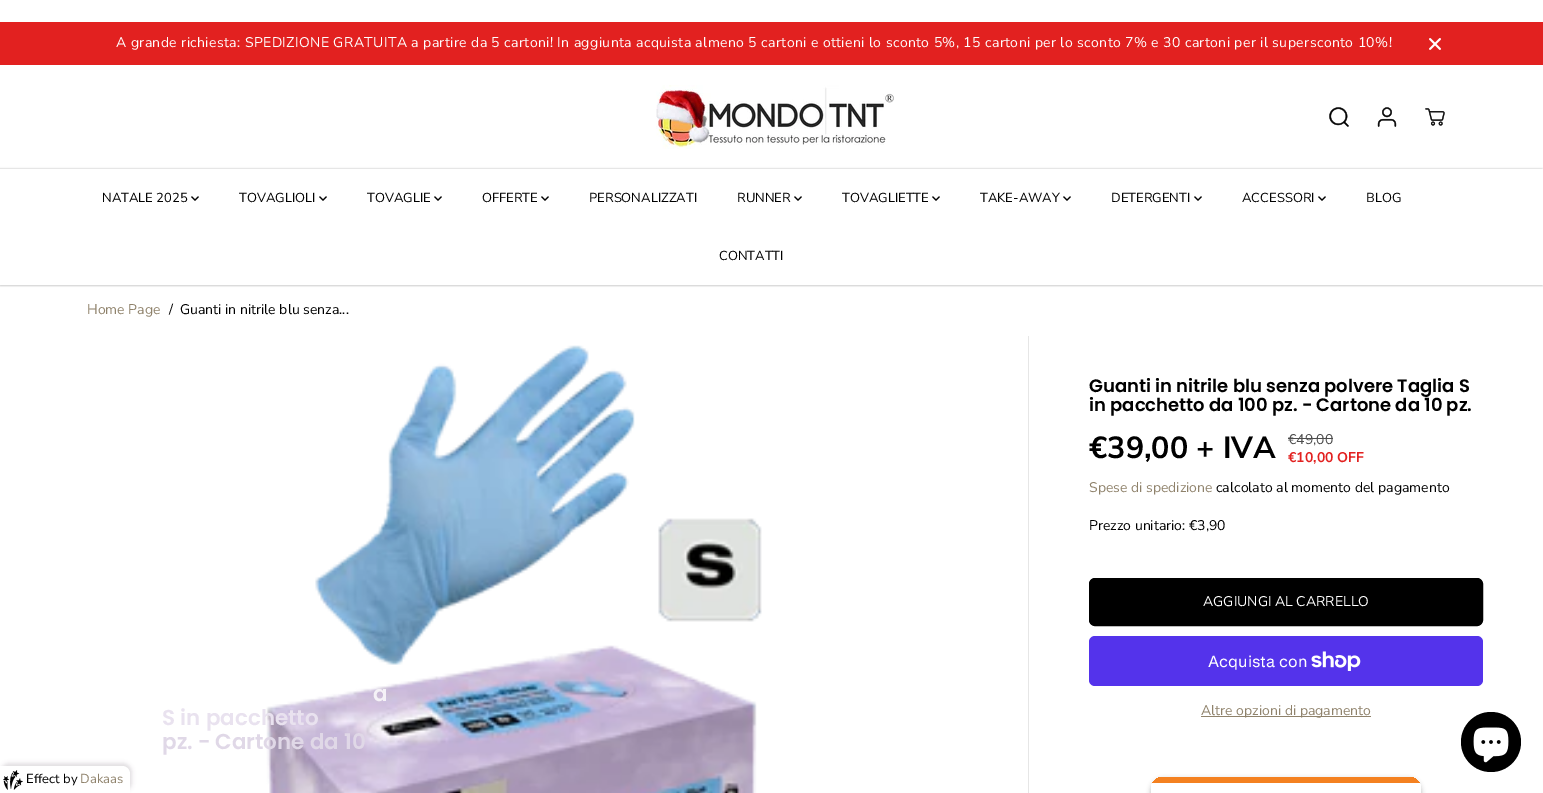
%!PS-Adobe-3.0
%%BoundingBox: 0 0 1543 793
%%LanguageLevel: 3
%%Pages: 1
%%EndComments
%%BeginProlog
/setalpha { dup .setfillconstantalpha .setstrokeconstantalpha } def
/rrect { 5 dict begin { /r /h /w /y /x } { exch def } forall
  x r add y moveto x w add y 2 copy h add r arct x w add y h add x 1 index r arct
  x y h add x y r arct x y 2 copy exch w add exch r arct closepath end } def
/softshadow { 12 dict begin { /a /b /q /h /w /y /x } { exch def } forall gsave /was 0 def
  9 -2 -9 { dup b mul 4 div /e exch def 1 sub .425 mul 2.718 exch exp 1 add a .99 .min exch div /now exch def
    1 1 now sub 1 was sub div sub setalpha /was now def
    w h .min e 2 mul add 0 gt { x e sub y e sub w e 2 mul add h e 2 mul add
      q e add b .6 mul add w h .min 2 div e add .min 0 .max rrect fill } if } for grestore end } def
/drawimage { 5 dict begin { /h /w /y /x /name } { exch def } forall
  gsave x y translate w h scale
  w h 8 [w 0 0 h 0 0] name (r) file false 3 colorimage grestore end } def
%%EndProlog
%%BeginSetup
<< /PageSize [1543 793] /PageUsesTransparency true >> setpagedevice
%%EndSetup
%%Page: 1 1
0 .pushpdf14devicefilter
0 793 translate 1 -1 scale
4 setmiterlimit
1 setgray
0 0 1543 793 rectfill
gsave
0 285 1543 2 rectclip
0 setgray
0 67 1543 220 0 1 0.05 softshadow
grestore
0.886 0.129 0.125 setrgbcolor
0 22 1543 43 rectfill
(images/1.raw) 1429 38 12 12 drawimage
(images/2.raw) 656 85 238 64 drawimage
(images/3.raw) 1329 107 20 20 drawimage
(images/4.raw) 1377 107 20 20 drawimage
(images/5.raw) 1425 108 20 18 drawimage
gsave
newpath 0 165 moveto 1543 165 lineto 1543 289 lineto 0 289 lineto closepath 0 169 moveto 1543 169 lineto 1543 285 lineto 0 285 lineto closepath eoclip newpath
0 setgray
-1 169 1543 116 0 1 0.3 softshadow
grestore
(images/6.raw) 191 196 8 5 drawimage
(images/6.raw) 319 196 8 5 drawimage
(images/6.raw) 434 196 8 5 drawimage
(images/6.raw) 541 196 8 5 drawimage
(images/6.raw) 794 196 8 5 drawimage
(images/6.raw) 932 196 8 5 drawimage
(images/6.raw) 1063 196 8 5 drawimage
(images/6.raw) 1194 196 8 5 drawimage
(images/6.raw) 1318 196 8 5 drawimage
0.902 setgray
1028 336 1 457 rectfill
(images/7.raw) 266 345 496 448 drawimage
0.302 setgray
1288 438 45 1 rectfill
0 setgray
1089.5 578.5 393 47 5.5 rrect gsave fill grestore
stroke
0.329 0.2 0.922 setrgbcolor
1089 636 394 50 6 rrect fill
(images/8.raw) 1311 651 50 20 drawimage
0.561 0.51 0.42 setrgbcolor
1201 716 170 1 rectfill
0 setgray
1151 779 270 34 12 2.5 0.26 softshadow
gsave
1151 777 270 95 12 rrect clip newpath
0.957 0.506 0.125 setrgbcolor
1151 777 270 6 rectfill
1 setgray
newpath 1151 783 moveto 1421 783 lineto 1421 793 lineto 1421 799.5 1415.5 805 1409 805 curveto 1163 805 lineto 1156.5 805 1151 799.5 1151 793 curveto closepath fill
grestore
newpath 1491 742 30 0 360 arc closepath fill
(images/9.raw) 1473 727 36 36 drawimage
0.251 0.235 0.263 setrgbcolor
0 763 132 29 9 2 0.16 softshadow
1 setgray
newpath 0 766 moveto 122 766 lineto 126.5 766 130 769.5 130 774 curveto 130 793 lineto 0 793 lineto closepath fill
(images/10.raw) 3 770 20 20 drawimage
/NunitoSans-Regular [14 0 0 -14 0 0] selectfont
116 47 moveto 0.4 0 (A grande richiesta: SPEDIZIONE GRATUITA a partire da 5 cartoni! In aggiunta acquista almeno 5 cartoni e ottieni lo sconto 5%, 15 cartoni per lo sconto 7% e 30 cartoni per il supersconto 10%!) ashow
/NunitoSans-Regular [13 0 0 -13 0 0] selectfont
0 setgray
102 202 moveto (NATALE 2025) show
239 202 moveto (TOVAGLIOLI) show
367 202 moveto (TOVAGLIE) show
482 202 moveto (OFFERTE) show
589 202 moveto (PERSONALIZZATI) show
737 202 moveto (RUNNER) show
842 202 moveto (TOVAGLIETTE) show
980 202 moveto (TAKE-AWAY) show
1111 202 moveto (DETERGENTI) show
1242 202 moveto (ACCESSORI) show
1366 202 moveto (BLOG) show
719 260 moveto (CONTATTI) show
/NunitoSans-Regular [14 0 0 -14 0 0] selectfont
0.561 0.51 0.42 setrgbcolor
87 314 moveto (Home Page) show
0 setgray
169 314 moveto (/) show
180 314 moveto (Guanti in nitrile blu senza...) show
/Poppins-SemiBold [21.5 0 0 -21.5 0 0] selectfont
0.961 0.949 0.969 setrgbcolor
373 701 moveto (a) show
0.914 0.886 0.937 setrgbcolor
162 725 moveto (S in pacchetto) show
0.878 0.847 0.906 setrgbcolor
162 749 moveto (pz. - Cartone da 10) show
/Poppins-SemiBold [18 0 0 -18 0 0] selectfont
0 setgray
1089 392 moveto (Guanti in nitrile blu senza polvere Taglia S) show
1089 411 moveto (in pacchetto da 100 pz. - Cartone da 10 pz.) show
/NunitoSans-Bold [30.5 0 0 -30.5 0 0] selectfont
1089 458 moveto (€39,00 + IVA) show
/NunitoSans-Regular [14 0 0 -14 0 0] selectfont
0.302 setgray
1288 444 moveto (€49,00) show
/NunitoSans-Bold [14 0 0 -14 0 0] selectfont
0.886 0.129 0.125 setrgbcolor
1288 462 moveto (€10,00 OFF) show
/NunitoSans-Regular [14 0 0 -14 0 0] selectfont
0.561 0.51 0.42 setrgbcolor
1089 492 moveto (Spese di spedizione) show
0 setgray
1216 492 moveto (calcolato al momento del pagamento) show
1089 530 moveto (Prezzo unitario: €3,90) show
1 setgray
1203 606 moveto (AGGIUNGI AL CARRELLO) show
/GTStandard-Regular [16 0 0 -16 0 0] selectfont
1208 667 moveto (Acquista con) show
/NunitoSans-Regular [14 0 0 -14 0 0] selectfont
0.561 0.51 0.42 setrgbcolor
1201 715 moveto (Altre opzioni di pagamento) show
/NunitoSans-Regular [13 0 0 -13 0 0] selectfont
0 setgray
26 783 moveto (Effect) show
63 783 moveto (by) show
0.561 0.51 0.42 setrgbcolor
80 783 moveto (Dakaas) show
.poppdf14devicefilter showpage
%%EOF
